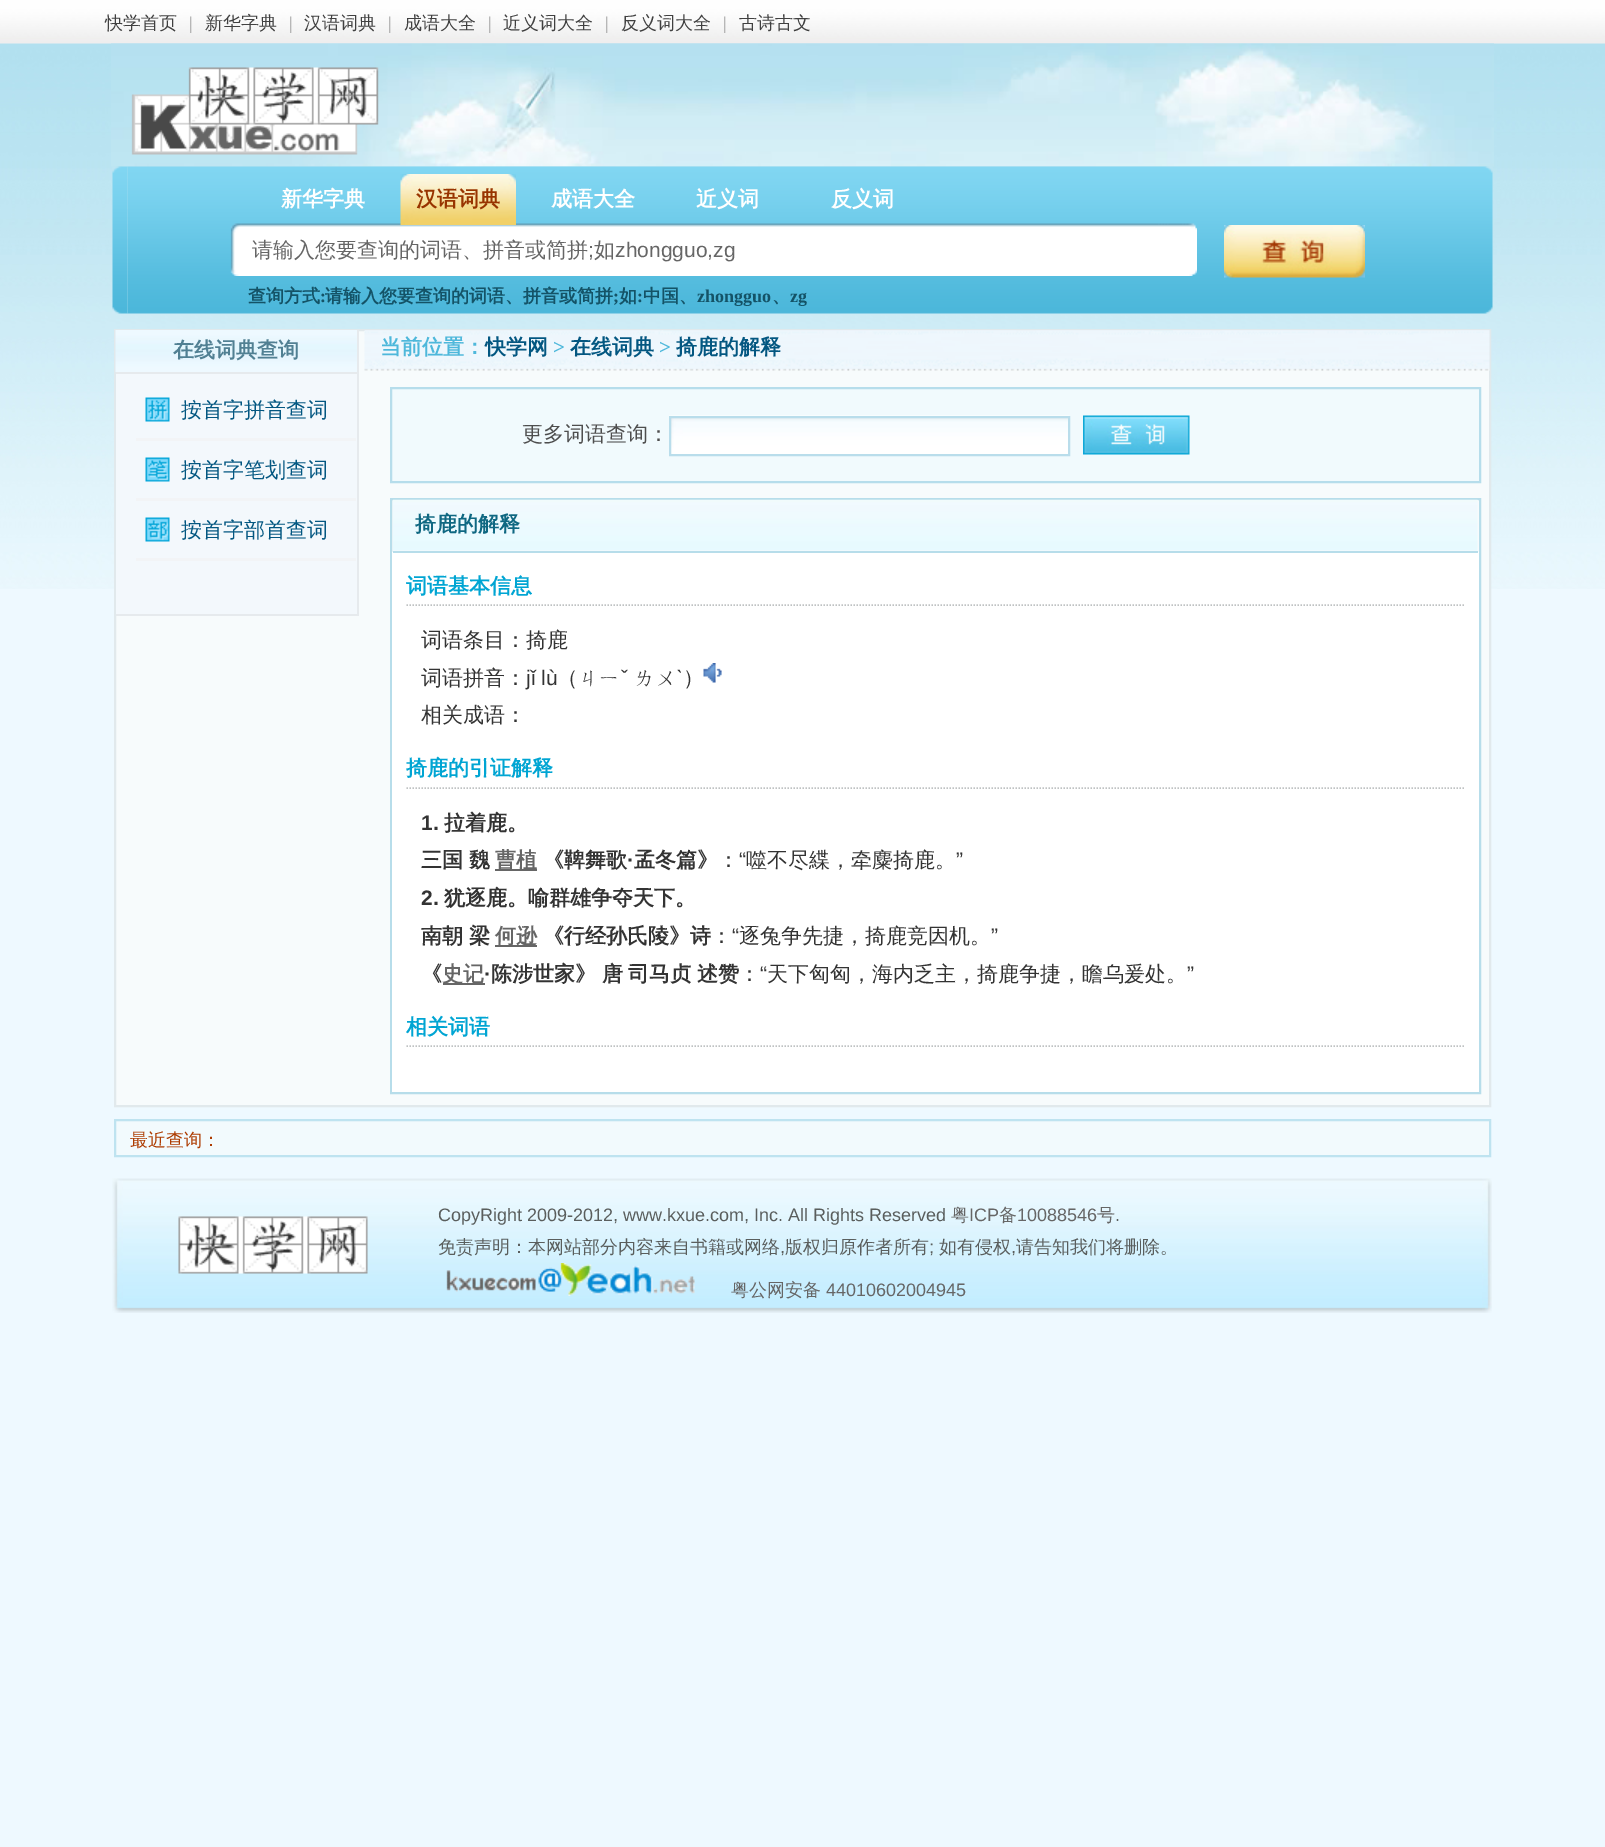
%!PS-Adobe-3.0
%%BoundingBox: 0 0 1605 1847
%%LanguageLevel: 3
%%Pages: 1
%%EndComments
%%BeginProlog
/drawimage { 5 dict begin { /h /w /y /x /name } { exch def } forall
  gsave x y translate w h scale
  w h 8 [w 0 0 h 0 0] name (r) file false 3 colorimage grestore end } def
%%EndProlog
%%BeginSetup
<< /PageSize [1605 1847] >> setpagedevice
%%EndSetup
%%Page: 1 1
0 1847 translate 1 -1 scale
4 setmiterlimit
0.933 0.976 1 setrgbcolor
0 0 1605 1847 rectfill
(images/1.raw) 0 0 1605 589 drawimage
(images/2.raw) 111 43 1383 124 drawimage
(images/3.raw) 131 67 248 88 drawimage
(images/4.raw) 112 166 16 148 drawimage
(images/5.raw) 127 166 1265 148 drawimage
(images/7.raw) 230 223 967 53 drawimage
(images/6.raw) 400 174 116 51 drawimage
(images/8.raw) 1224 225 141 53 drawimage
(images/9.raw) 1392 166 101 148 drawimage
0.969 0.984 0.988 setrgbcolor
newpath 115 330 moveto 1490 330 lineto 1490 1106 lineto 115 1106 lineto closepath gsave fill grestore
0.882 0.914 0.925 setrgbcolor
2 setlinewidth
stroke
0.902 0.918 0.929 setrgbcolor
357 330 2 285 rectfill
116 614 243 2 rectfill
(images/10.raw) 115 330 242 42 drawimage
116 372 241 2 rectfill
0.953 0.973 0.988 setrgbcolor
116 374 241 240 rectfill
0.949 0.957 0.965 setrgbcolor
136 438 220 3 rectfill
(images/11.raw) 145 397 25 25 drawimage
136 498 220 3 rectfill
(images/12.raw) 145 457 25 25 drawimage
136 558 220 3 rectfill
(images/13.raw) 145 517 25 25 drawimage
(images/14.raw) 364 330 1126 41 drawimage
0.945 0.98 0.992 setrgbcolor
newpath 391 388 moveto 1480 388 lineto 1480 482 lineto 391 482 lineto closepath gsave fill grestore
0.714 0.867 0.922 setrgbcolor
stroke
(images/15.raw) 669 415 401 39 drawimage
0.725 0.867 0.922 setrgbcolor
670 417 399 38 rectstroke
(images/16.raw) 1083 415 107 40 drawimage
0.718 0.867 0.918 setrgbcolor
391 499 1089 594 rectstroke
(images/17.raw) 393 499 1085 52 drawimage
1 setgray
392 552 1087 540 rectfill
0.718 0.867 0.918 setrgbcolor
393 551 1085 2 rectfill
0.749 0.761 0.765 setrgbcolor
1.5 setlinewidth
[1.5 1.5] 0 setdash
newpath 406.5 605 moveto 1464 605 lineto stroke
(images/18.raw) 703 663 19 20 drawimage
newpath 406.5 788 moveto 1464 788 lineto stroke
0.4 setgray
495 869 42 2 rectfill
495 945 42 2 rectfill
443 983 42 2 rectfill
0.749 0.761 0.765 setrgbcolor
newpath 406.5 1046 moveto 1464 1046 lineto stroke
0.949 0.98 0.992 setrgbcolor
newpath 115 1120 moveto 1490 1120 lineto 1490 1156 lineto 115 1156 lineto closepath gsave fill grestore
0.745 0.89 0.941 setrgbcolor
2 setlinewidth
[] 0 setdash
stroke
(images/19.raw) 112 1178 11 135 drawimage
(images/20.raw) 123 1178 1359 135 drawimage
(images/21.raw) 178 1216 190 58 drawimage
(images/22.raw) 446 1263 249 33 drawimage
(images/23.raw) 1482 1178 10 135 drawimage
/WenQuanYiZenHei-Medium [18 0 0 -18 0 0] selectfont
0.251 setgray
105 29 moveto (快学首页) show
/LiberationSerif-Regular [18 0 0 -18 0 0] selectfont
0.627 setgray
189 29 moveto (|) show
/WenQuanYiZenHei-Medium [18 0 0 -18 0 0] selectfont
0.251 setgray
205 29 moveto (新华字典) show
/LiberationSerif-Regular [18 0 0 -18 0 0] selectfont
0.627 setgray
289 29 moveto (|) show
/WenQuanYiZenHei-Medium [18 0 0 -18 0 0] selectfont
0.251 setgray
304 29 moveto (汉语词典) show
/LiberationSerif-Regular [18 0 0 -18 0 0] selectfont
0.627 setgray
388 29 moveto (|) show
/WenQuanYiZenHei-Medium [18 0 0 -18 0 0] selectfont
0.251 setgray
404 29 moveto (成语大全) show
/LiberationSerif-Regular [18 0 0 -18 0 0] selectfont
0.627 setgray
488 29 moveto (|) show
/WenQuanYiZenHei-Medium [18 0 0 -18 0 0] selectfont
0.251 setgray
503 29 moveto (近义词大全) show
/LiberationSerif-Regular [18 0 0 -18 0 0] selectfont
0.627 setgray
605 29 moveto (|) show
/WenQuanYiZenHei-Medium [18 0 0 -18 0 0] selectfont
0.251 setgray
621 29 moveto (反义词大全) show
/LiberationSerif-Regular [18 0 0 -18 0 0] selectfont
0.627 setgray
723 29 moveto (|) show
/WenQuanYiZenHei-Medium [18 0 0 -18 0 0] selectfont
0.251 setgray
739 29 moveto (古诗古文) show
/WenQuanYiZenHei-Bold [21 0 0 -21 0 0] selectfont
1 setgray
281 206 moveto (新华字典) show
0.596 0.204 0 setrgbcolor
416 206 moveto (汉语词典) show
1 setgray
551 206 moveto (成语大全) show
696 206 moveto (近义词) show
831 206 moveto (反义词) show
/WenQuanYiZenHei-Medium [21 0 0 -21 0 0] selectfont
0.4 setgray
252 257 moveto (请输入您要查询的词语、拼音或简拼) show
/LiberationSans-Regular [21 0 0 -21 0 0] selectfont
588 257 moveto (;) show
/WenQuanYiZenHei-Medium [21 0 0 -21 0 0] selectfont
594 257 moveto (如) show
/LiberationSans-Regular [21 0 0 -21 0 0] selectfont
615 257 moveto (zhongguo,zg) show
/WenQuanYiZenHei-Bold [18 0 0 -18 0 0] selectfont
0.078 0.325 0.404 setrgbcolor
248 302 moveto (查询方式) show
/LiberationSerif-Bold [18 0 0 -18 0 0] selectfont
320 302 moveto (:) show
/WenQuanYiZenHei-Bold [18 0 0 -18 0 0] selectfont
325 302 moveto (请输入您要查询的词语、拼音或简拼) show
/LiberationSerif-Bold [18 0 0 -18 0 0] selectfont
613 302 moveto (;) show
/WenQuanYiZenHei-Bold [18 0 0 -18 0 0] selectfont
619 302 moveto (如) show
/LiberationSerif-Bold [18 0 0 -18 0 0] selectfont
637 302 moveto (:) show
/WenQuanYiZenHei-Bold [18 0 0 -18 0 0] selectfont
643 302 moveto (中国、) show
/LiberationSerif-Bold [18 0 0 -18 0 0] selectfont
697 302 moveto (zhongguo) show
/WenQuanYiZenHei-Bold [18 0 0 -18 0 0] selectfont
772 302 moveto (、) show
/LiberationSerif-Bold [18 0 0 -18 0 0] selectfont
790 302 moveto (zg) show
/WenQuanYiZenHei-Bold [21 0 0 -21 0 0] selectfont
0.318 0.502 0.576 setrgbcolor
173 357 moveto (在线词典查询) show
/WenQuanYiZenHei-Medium [21 0 0 -21 0 0] selectfont
0.012 0.341 0.506 setrgbcolor
181 417 moveto (按首字拼音查词) show
181 477 moveto (按首字笔划查词) show
181 537 moveto (按首字部首查词) show
/WenQuanYiZenHei-Bold [21 0 0 -21 0 0] selectfont
0.306 0.722 0.859 setrgbcolor
380 354 moveto (当前位置：) show
0.012 0.341 0.506 setrgbcolor
485 354 moveto (快学网) show
/LiberationSerif-Bold [21 0 0 -21 0 0] selectfont
0.306 0.722 0.859 setrgbcolor
553 354 moveto (>) show
/WenQuanYiZenHei-Bold [21 0 0 -21 0 0] selectfont
0.012 0.341 0.506 setrgbcolor
570 354 moveto (在线词典) show
/LiberationSerif-Bold [21 0 0 -21 0 0] selectfont
0.306 0.722 0.859 setrgbcolor
659 354 moveto (>) show
/WenQuanYiZenHei-Bold [21 0 0 -21 0 0] selectfont
0.012 0.341 0.506 setrgbcolor
676 354 moveto (掎鹿的解释) show
/WenQuanYiZenHei-Medium [21 0 0 -21 0 0] selectfont
0.306 setgray
522 441 moveto (更多词语查询：) show
/WenQuanYiZenHei-Bold [21 0 0 -21 0 0] selectfont
0.059 0.408 0.51 setrgbcolor
415 531 moveto (掎鹿的解释) show
0 0.647 0.827 setrgbcolor
406 593 moveto (词语基本信息) show
/WenQuanYiZenHei-Medium [21 0 0 -21 0 0] selectfont
0.2 setgray
421 647 moveto (词语条目：掎鹿) show
421 685 moveto (词语拼音：) show
/LiberationSans-Regular [21 0 0 -21 0 0] selectfont
526 685 moveto (jǐ lù) show
/WenQuanYiZenHei-Medium [21 0 0 -21 0 0] selectfont
557 685 moveto (（ㄐㄧ) show
/LiberationSans-Regular [21 0 0 -21 0 0] selectfont
621 685 moveto (ˇ) show
/WenQuanYiZenHei-Medium [21 0 0 -21 0 0] selectfont
634 685 moveto (ㄌㄨ) show
/LiberationSans-Regular [21 0 0 -21 0 0] selectfont
676 685 moveto (ˋ) show
/WenQuanYiZenHei-Medium [21 0 0 -21 0 0] selectfont
683 685 moveto (）) show
421 722 moveto (相关成语：) show
/WenQuanYiZenHei-Bold [21 0 0 -21 0 0] selectfont
0 0.647 0.827 setrgbcolor
406 775 moveto (掎鹿的引证解释) show
/LiberationSans-Bold [21 0 0 -21 0 0] selectfont
0.2 setgray
421 830 moveto (1.) show
/WenQuanYiZenHei-Bold [21 0 0 -21 0 0] selectfont
444 830 moveto (拉着鹿。) show
421 867 moveto (三国) show
469 867 moveto (魏) show
0.4 setgray
495 867 moveto (曹植) show
0.2 setgray
543 867 moveto (《鞞舞歌) show
634 867 moveto (孟冬篇》) show
/LiberationSans-Regular [21 0 0 -21 0 0] selectfont
739 867 moveto (“) show
/WenQuanYiZenHei-Medium [21 0 0 -21 0 0] selectfont
746 867 moveto (噬不尽緤，牵麋掎鹿。) show
/LiberationSans-Regular [21 0 0 -21 0 0] selectfont
956 867 moveto (”) show
/LiberationSans-Bold [21 0 0 -21 0 0] selectfont
627 867 moveto (·) show
/WenQuanYiZenHei-Medium [21 0 0 -21 0 0] selectfont
718 867 moveto (：) show
/LiberationSans-Bold [21 0 0 -21 0 0] selectfont
421 905 moveto (2.) show
/WenQuanYiZenHei-Bold [21 0 0 -21 0 0] selectfont
444 905 moveto (犹逐鹿。喻群雄争夺天下。) show
421 943 moveto (南朝) show
469 943 moveto (梁) show
0.4 setgray
495 943 moveto (何逊) show
0.2 setgray
543 943 moveto (《行经孙氏陵》诗) show
/LiberationSans-Regular [21 0 0 -21 0 0] selectfont
732 943 moveto (“) show
/WenQuanYiZenHei-Medium [21 0 0 -21 0 0] selectfont
739 943 moveto (逐兔争先捷，掎鹿竞因机。) show
/LiberationSans-Regular [21 0 0 -21 0 0] selectfont
991 943 moveto (”) show
/WenQuanYiZenHei-Medium [21 0 0 -21 0 0] selectfont
711 943 moveto (：) show
/WenQuanYiZenHei-Bold [21 0 0 -21 0 0] selectfont
421 981 moveto (《) show
0.4 setgray
442 981 moveto (史记) show
0.2 setgray
491 981 moveto (陈涉世家》 唐) show
628 981 moveto (司马贞 述赞) show
/LiberationSans-Regular [21 0 0 -21 0 0] selectfont
760 981 moveto (“) show
/WenQuanYiZenHei-Medium [21 0 0 -21 0 0] selectfont
767 981 moveto (天下匈匈，海内乏主，掎鹿争捷，瞻乌爰处。) show
/LiberationSans-Regular [21 0 0 -21 0 0] selectfont
1187 981 moveto (”) show
/LiberationSans-Bold [21 0 0 -21 0 0] selectfont
484 981 moveto (·) show
/WenQuanYiZenHei-Medium [21 0 0 -21 0 0] selectfont
739 981 moveto (：) show
/WenQuanYiZenHei-Bold [21 0 0 -21 0 0] selectfont
0 0.647 0.827 setrgbcolor
406 1034 moveto (相关词语) show
/WenQuanYiZenHei-Medium [18 0 0 -18 0 0] selectfont
0.678 0.231 0 setrgbcolor
130 1146 moveto (最近查询：) show
/LiberationSans-Regular [18 0 0 -18 0 0] selectfont
0.353 0.369 0.365 setrgbcolor
438 1221 moveto (CopyRight 2009-2012, www.kxue.com, Inc. All Rights Reserved) show
/WenQuanYiZenHei-Medium [18 0 0 -18 0 0] selectfont
0.4 setgray
951 1221 moveto (粤) show
/LiberationSans-Regular [18 0 0 -18 0 0] selectfont
969 1221 moveto (ICP) show
/WenQuanYiZenHei-Medium [18 0 0 -18 0 0] selectfont
999 1221 moveto (备) show
/LiberationSans-Regular [18 0 0 -18 0 0] selectfont
1017 1221 moveto (10088546) show
/WenQuanYiZenHei-Medium [18 0 0 -18 0 0] selectfont
1097 1221 moveto (号) show
/LiberationSans-Regular [18 0 0 -18 0 0] selectfont
0.353 0.369 0.365 setrgbcolor
1115 1221 moveto (.) show
/WenQuanYiZenHei-Medium [18 0 0 -18 0 0] selectfont
438 1253 moveto (免责声明：本网站部分内容来自书籍或网络) show
/LiberationSans-Regular [18 0 0 -18 0 0] selectfont
780 1253 moveto (,) show
/WenQuanYiZenHei-Medium [18 0 0 -18 0 0] selectfont
785 1253 moveto (版权归原作者所有) show
/LiberationSans-Regular [18 0 0 -18 0 0] selectfont
929 1253 moveto (;) show
/WenQuanYiZenHei-Medium [18 0 0 -18 0 0] selectfont
939 1253 moveto (如有侵权) show
/LiberationSans-Regular [18 0 0 -18 0 0] selectfont
1011 1253 moveto (,) show
/WenQuanYiZenHei-Medium [18 0 0 -18 0 0] selectfont
1016 1253 moveto (请告知我们将删除。) show
0.4 setgray
731 1296 moveto (粤公网安备) show
/LiberationSans-Regular [18 0 0 -18 0 0] selectfont
826 1296 moveto (44010602004945) show
showpage
%%EOF
